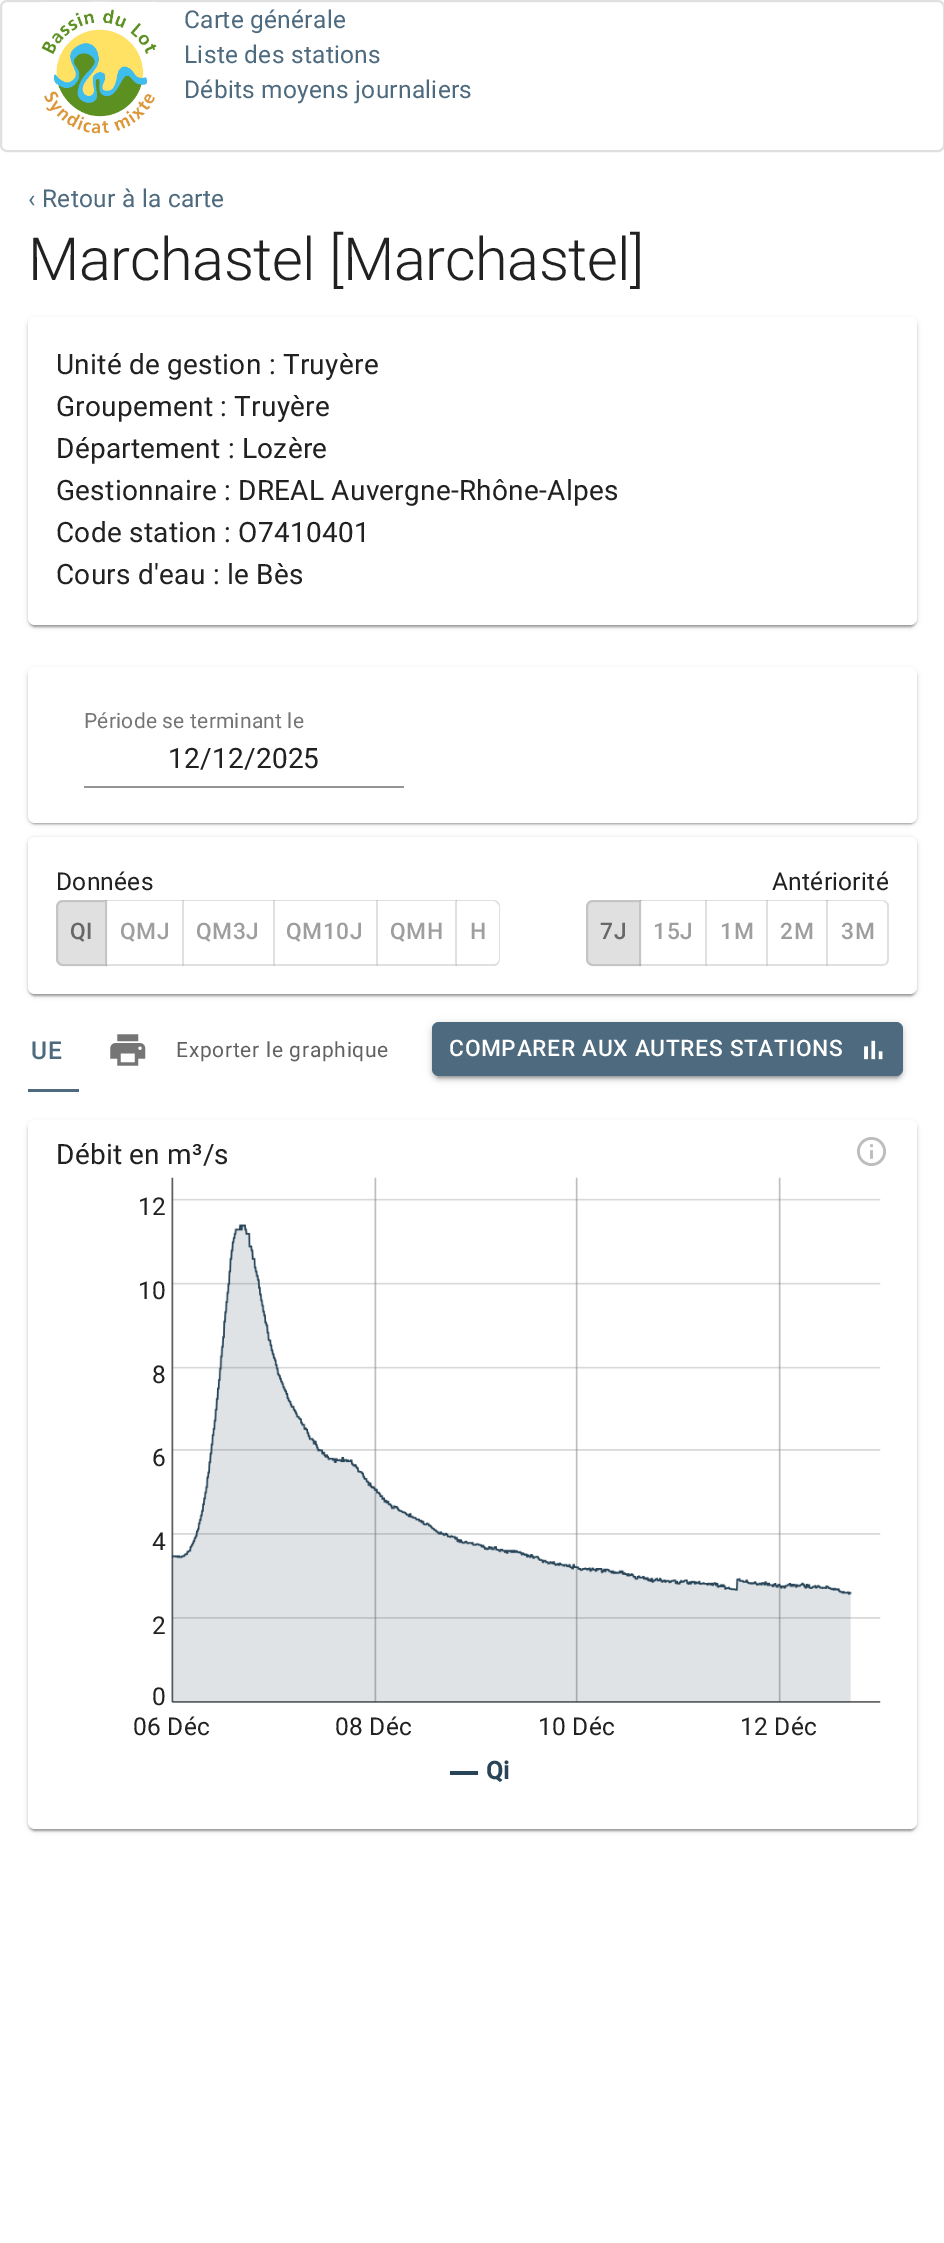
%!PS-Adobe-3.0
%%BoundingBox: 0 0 944 2243
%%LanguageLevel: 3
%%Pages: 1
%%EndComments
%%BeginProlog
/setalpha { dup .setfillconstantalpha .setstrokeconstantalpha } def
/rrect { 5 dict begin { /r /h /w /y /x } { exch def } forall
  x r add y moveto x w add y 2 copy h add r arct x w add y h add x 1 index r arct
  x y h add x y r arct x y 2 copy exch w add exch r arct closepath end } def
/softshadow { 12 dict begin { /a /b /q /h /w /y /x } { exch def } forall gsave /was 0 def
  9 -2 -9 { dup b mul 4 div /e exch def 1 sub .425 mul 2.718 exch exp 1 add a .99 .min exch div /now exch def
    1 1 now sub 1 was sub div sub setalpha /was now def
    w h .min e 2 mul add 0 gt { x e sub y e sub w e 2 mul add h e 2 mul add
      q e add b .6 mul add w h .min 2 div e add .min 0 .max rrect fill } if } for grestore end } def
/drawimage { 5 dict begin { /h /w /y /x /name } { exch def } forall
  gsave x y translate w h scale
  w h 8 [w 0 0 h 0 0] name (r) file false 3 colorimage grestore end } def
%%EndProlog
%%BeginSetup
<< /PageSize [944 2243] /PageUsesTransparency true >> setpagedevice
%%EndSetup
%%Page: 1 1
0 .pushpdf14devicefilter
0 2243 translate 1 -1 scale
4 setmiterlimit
1 setgray
0 0 944 2243 rectfill
0.878 setgray
2 setlinewidth
1 1 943 150 6 rrect stroke
(images/1.raw) 41 1 116 133 drawimage
0 setgray
28 319 889 308 7 2.5 0.12 softshadow
28 319 889 308 7 1 0.14 softshadow
30 322 885 305 5 1 0.2 softshadow
1 setgray
28 317 889 308 7 rrect fill
0 setgray
28 669 889 155 7 2.5 0.12 softshadow
28 669 889 155 7 1 0.14 softshadow
30 672 885 152 5 1 0.2 softshadow
1 setgray
28 667 889 156 7 rrect fill
0.58 setgray
84 786 320 2 rectfill
0 setgray
28 838 889 158 7 2.5 0.12 softshadow
28 838 889 158 7 1 0.14 softshadow
30 842 885 154 5 1 0.2 softshadow
1 setgray
28 837 889 157 7 rrect fill
0.878 setgray
newpath 63 900 moveto 107 900 lineto 107 966 lineto 63 966 lineto 59 966 56 963 56 959 curveto 56 907 lineto 56 903 59 900 63 900 curveto closepath fill
0.12 setalpha
0 setgray
newpath 63 901 moveto 106 901 lineto 106 965 lineto 63 965 lineto 59.5 965 57 962.5 57 959 curveto 57 907 lineto 57 903.5 59.5 901 63 901 curveto closepath stroke
newpath 105 900 moveto 184 900 lineto 182 901 lineto 107 901 lineto closepath fill
newpath 184 900 moveto 184 966 lineto 182 964 lineto 182 901 lineto closepath fill
newpath 184 966 moveto 105 966 lineto 107 964 lineto 182 964 lineto closepath fill
newpath 182 900 moveto 275 900 lineto 273 901 lineto 184 901 lineto closepath fill
newpath 275 900 moveto 275 966 lineto 273 964 lineto 273 901 lineto closepath fill
newpath 275 966 moveto 182 966 lineto 184 964 lineto 273 964 lineto closepath fill
newpath 273 900 moveto 378 900 lineto 376 901 lineto 275 901 lineto closepath fill
newpath 378 900 moveto 378 966 lineto 376 964 lineto 376 901 lineto closepath fill
newpath 378 966 moveto 273 966 lineto 275 964 lineto 376 964 lineto closepath fill
newpath 376 900 moveto 457 900 lineto 455 901 lineto 378 901 lineto closepath fill
newpath 457 900 moveto 457 966 lineto 455 964 lineto 455 901 lineto closepath fill
newpath 457 966 moveto 376 966 lineto 378 964 lineto 455 964 lineto closepath fill
newpath 457 901 moveto 494 901 lineto 495 901 496 902 497 903 curveto 498 902 lineto 497 901 496 900 494 900 curveto 456 900 lineto 457 902 lineto closepath fill
newpath 498 902 moveto 499 903 500 904 500 906 curveto 500 959 lineto 500 961 499 963 498 964 curveto 497 963 lineto 498 962 499 961 499 959 curveto 499 906 lineto 499 905 498 904 497 903 curveto closepath fill
newpath 494 966 moveto 496 966 497 965 498 964 curveto 497 963 lineto 496 964 495 964 494 964 curveto 457 964 lineto 455 966 lineto closepath fill
1 setalpha
0.878 setgray
newpath 593 900 moveto 641 900 lineto 641 966 lineto 593 966 lineto 589 966 586 963 586 959 curveto 586 907 lineto 586 903 589 900 593 900 curveto closepath fill
0.12 setalpha
0 setgray
newpath 593 901 moveto 640 901 lineto 640 965 lineto 593 965 lineto 589.5 965 587 962.5 587 959 curveto 587 907 lineto 587 903.5 589.5 901 593 901 curveto closepath stroke
newpath 639 900 moveto 707 900 lineto 705 901 lineto 640 901 lineto closepath fill
newpath 707 900 moveto 707 966 lineto 705 964 lineto 705 901 lineto closepath fill
newpath 707 966 moveto 639 966 lineto 640 964 lineto 705 964 lineto closepath fill
newpath 705 900 moveto 768 900 lineto 766 901 lineto 707 901 lineto closepath fill
newpath 768 900 moveto 768 966 lineto 766 964 lineto 766 901 lineto closepath fill
newpath 768 966 moveto 705 966 lineto 707 964 lineto 766 964 lineto closepath fill
newpath 766 900 moveto 828 900 lineto 826 901 lineto 768 901 lineto closepath fill
newpath 828 900 moveto 828 966 lineto 826 964 lineto 826 901 lineto closepath fill
newpath 828 966 moveto 766 966 lineto 768 964 lineto 826 964 lineto closepath fill
newpath 828 901 moveto 883 901 lineto 886 903 lineto 887 902 lineto 886 901 884 900 882 900 curveto 826 900 lineto 828 902 lineto closepath fill
newpath 887 902 moveto 888 903 889 904 889 906 curveto 889 959 lineto 889 961 888 963 887 964 curveto 886 963 lineto 886 962 887 960 887 959 curveto 887 906 lineto 887 905 887 904 886 903 curveto closepath fill
newpath 882 966 moveto 884 966 886 965 887 964 curveto 886 963 lineto 885 964 884 964 882 964 curveto 828 964 lineto 826 966 lineto closepath fill
1 setalpha
0.302 0.416 0.494 setrgbcolor
28 1089 51 3 rectfill
(images/2.raw) 110 1034 36 32 drawimage
0 setgray
432 1024 471 54 7 4.5 0.12 softshadow
432 1026 471 54 7 2 0.14 softshadow
436 1031 464 47 4 1 0.2 softshadow
0.302 0.416 0.494 setrgbcolor
432 1022 471 54 7 rrect fill
(images/3.raw) 864 1040 19 20 drawimage
0 setgray
28 1122 889 709 7 2.5 0.12 softshadow
28 1122 889 709 7 1 0.14 softshadow
30 1125 885 706 5 1 0.2 softshadow
1 setgray
28 1120 889 709 7 rrect fill
(images/4.raw) 857 1137 29 29 drawimage
(images/5.raw) 171 1177 710 526 drawimage
0.153 0.267 0.345 setrgbcolor
450 1771 28 4 rectfill
/Roboto-Regular [24.5 0 0 -24.5 0 0] selectfont
0.302 0.416 0.494 setrgbcolor
184 28 moveto 0.25 0 (Carte générale) ashow
184 63 moveto 0.25 0 (Liste des stations) ashow
184 98 moveto 0.25 0 (Débits moyens journaliers) ashow
28 207 moveto 0.25 0 (‹ Retour à la carte) ashow
/Roboto-Light [59.5 0 0 -59.5 0 0] selectfont
0.129 setgray
28 280 moveto -0.5 0 (Marchastel [Marchastel]) ashow
/Roboto-Regular [28 0 0 -28 0 0] selectfont
56 374 moveto 0.25 0 (Unité de gestion : Truyère) ashow
56 416 moveto 0.25 0 (Groupement : Truyère) ashow
56 458 moveto 0.25 0 (Département : Lozère) ashow
56 500 moveto 0.25 0 (Gestionnaire : DREAL Auvergne-Rhône-Alpes) ashow
56 542 moveto 0.25 0 (Code station : O7410401) ashow
56 584 moveto 0.25 0 (Cours d'eau : le Bès) ashow
/Roboto-Regular [21 0 0 -21 0 0] selectfont
0.459 setgray
84 728 moveto 0.2 0 (Période se terminant le) ashow
/Roboto-Regular [28 0 0 -28 0 0] selectfont
0.129 setgray
168 768 moveto 0.25 0 (12/12/2025) ashow
/Roboto-Regular [24.5 0 0 -24.5 0 0] selectfont
56 890 moveto 0.25 0 (Données) ashow
/Roboto-Medium [22.75 0 0 -22.75 0 0] selectfont
0.404 setgray
70 939 moveto 0.65 0 (QI) ashow
0.62 setgray
120 939 moveto 0.65 0 (QMJ) ashow
196 939 moveto 0.65 0 (QM3J) ashow
286 939 moveto 0.65 0 (QM10J) ashow
390 939 moveto 0.65 0 (QMH) ashow
470 939 moveto 0.65 0 (H) ashow
/Roboto-Regular [24.5 0 0 -24.5 0 0] selectfont
0.129 setgray
772 890 moveto 0.25 0 (Antériorité) ashow
/Roboto-Medium [22.75 0 0 -22.75 0 0] selectfont
0.404 setgray
600 939 moveto 0.65 0 (7J) ashow
0.62 setgray
653 939 moveto 0.65 0 (15J) ashow
720 939 moveto 0.65 0 (1M) ashow
780 939 moveto 0.65 0 (2M) ashow
841 939 moveto 0.65 0 (3M) ashow
/Roboto-Medium [24.5 0 0 -24.5 0 0] selectfont
0.302 0.416 0.494 setrgbcolor
31 1059 moveto 0.7 0 (UE) ashow
/Roboto-Regular [21 0 0 -21 0 0] selectfont
0.38 setgray
176 1057 moveto 0.7 0 (Exporter le graphique) ashow
/Roboto-Medium [22.75 0 0 -22.75 0 0] selectfont
1 setgray
449 1056 moveto 0.65 0 (COMPARER AUX AUTRES STATIONS) ashow
/Roboto-Regular [28 0 0 -28 0 0] selectfont
0.129 setgray
56 1164 moveto 0.25 0 (Débit en m³/s) ashow
/Roboto-Regular [24.5 0 0 -24.5 0 0] selectfont
138 1215 moveto 0.25 0 (12) ashow
138 1299 moveto 0.25 0 (10) ashow
152 1383 moveto 0.25 0 (8) ashow
152 1466 moveto 0.25 0 (6) ashow
152 1550 moveto 0.25 0 (4) ashow
152 1634 moveto 0.25 0 (2) ashow
152 1705 moveto 0.25 0 (0) ashow
133 1735 moveto 0.25 0 (06 Déc) ashow
335 1735 moveto 0.25 0 (08 Déc) ashow
538 1735 moveto 0.25 0 (10 Déc) ashow
740 1735 moveto 0.25 0 (12 Déc) ashow
/Roboto-Bold [24.5 0 0 -24.5 0 0] selectfont
0.153 0.267 0.345 setrgbcolor
486 1779 moveto 0.25 0 (Qi) ashow
.poppdf14devicefilter showpage
%%EOF
